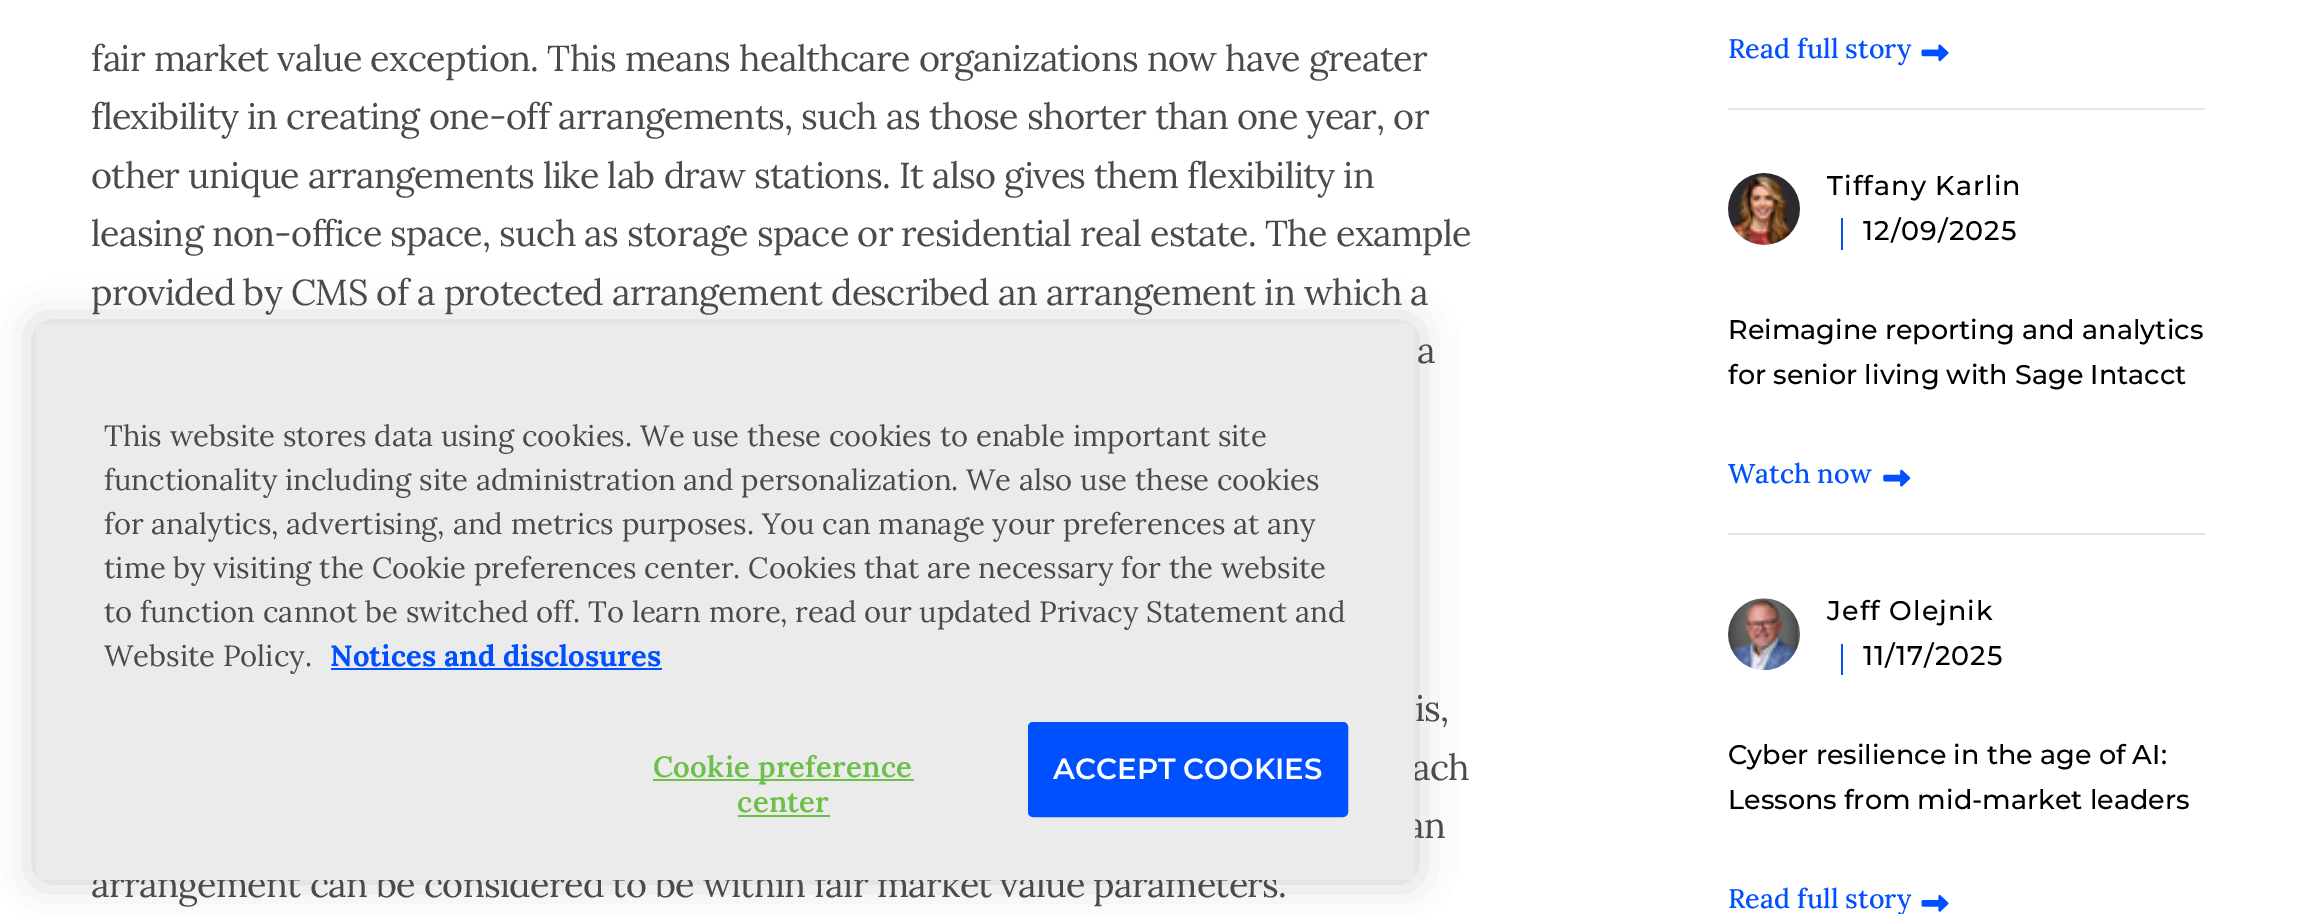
%!PS-Adobe-3.0
%%BoundingBox: 0 0 2297 914
%%LanguageLevel: 3
%%Pages: 1
%%EndComments
%%BeginProlog
/setalpha { dup .setfillconstantalpha .setstrokeconstantalpha } def
/rrect { 5 dict begin { /r /h /w /y /x } { exch def } forall
  x r add y moveto x w add y 2 copy h add r arct x w add y h add x 1 index r arct
  x y h add x y r arct x y 2 copy exch w add exch r arct closepath end } def
/softshadow { 12 dict begin { /a /b /q /h /w /y /x } { exch def } forall gsave /was 0 def
  9 -2 -9 { dup b mul 4 div /e exch def 1 sub .425 mul 2.718 exch exp 1 add a .99 .min exch div /now exch def
    1 1 now sub 1 was sub div sub setalpha /was now def
    w h .min e 2 mul add 0 gt { x e sub y e sub w e 2 mul add h e 2 mul add
      q e add b .6 mul add w h .min 2 div e add .min 0 .max rrect fill } if } for grestore end } def
/drawimage { 5 dict begin { /h /w /y /x /name } { exch def } forall
  gsave x y translate w h scale
  w h 8 [w 0 0 h 0 0] name (r) file false 3 colorimage grestore end } def
%%EndProlog
%%BeginSetup
<< /PageSize [2297 914] /PageUsesTransparency true >> setpagedevice
%%EndSetup
%%Page: 1 1
0 .pushpdf14devicefilter
0 914 translate 1 -1 scale
4 setmiterlimit
1 setgray
0 0 2297 914 rectfill
(images/1.raw) 1921 44 28 18 drawimage
0.89 0.894 0.894 setrgbcolor
1728 108 477 2 rectfill
(images/2.raw) 1728 173 72 72 drawimage
0 0.314 1 setrgbcolor
1841 218 2 32 rectfill
(images/3.raw) 1883 469 28 18 drawimage
0.89 0.894 0.894 setrgbcolor
1728 533 477 2 rectfill
(images/4.raw) 1728 598 72 73 drawimage
0 0.314 1 setrgbcolor
1841 644 2 31 rectfill
(images/5.raw) 1921 895 28 17 drawimage
0 setgray
36 324 1379 556 6 20 0.2 softshadow
/Lora-Regular [36 0 0 -36 0 0] selectfont
0.282 0.29 0.306 setrgbcolor
91 71 moveto -0.67 0 (fair market value exception. This means healthcare organizations now have greater) ashow
91 129 moveto -0.67 0 (flexibility in creating one-off arrangements, such as those shorter than one year, or) ashow
91 188 moveto -0.67 0 (other unique arrangements like lab draw stations. It also gives them flexibility in) ashow
91 246 moveto -0.67 0 (leasing non-office space, such as storage space or residential real estate. The example) ashow
91 305 moveto -0.67 0 (provided by CMS of a protected arrangement described an arrangement in which a) ashow
1417 363 moveto -0.67 0 (a) ashow
1415 721 moveto -0.67 0 (is,) ashow
1412 780 moveto -0.67 0 (ach) ashow
1406 838 moveto -0.67 0 (an) ashow
91 897 moveto -0.67 0 (arrangement can be considered to be within fair market value parameters.) ashow
/Lora-Medium [27 0 0 -27 0 0] selectfont
0 0.314 1 setrgbcolor
1728 58 moveto (Read full story) show
/Montserrat-Medium [27 0 0 -27 0 0] selectfont
0 setgray
1827 195 moveto 1.1 0 (Tiffany Karlin) ashow
1863 240 moveto 1.1 0 (12/09/2025) ashow
1728 339 moveto (Reimagine reporting and analytics) show
1728 384 moveto (for senior living with Sage Intacct) show
/Lora-Medium [27 0 0 -27 0 0] selectfont
0 0.314 1 setrgbcolor
1728 483 moveto (Watch now) show
/Montserrat-Medium [27 0 0 -27 0 0] selectfont
0 setgray
1827 620 moveto 1.1 0 (Jeff Olejnik) ashow
1863 665 moveto 1.1 0 (11/17/2025) ashow
1728 764 moveto (Cyber resilience in the age of AI:) show
1728 809 moveto (Lessons from mid-market leaders) show
/Lora-Medium [27 0 0 -27 0 0] selectfont
0 0.314 1 setrgbcolor
1728 908 moveto (Read full story) show
0.922 setgray
36 324 1379 556 6 rrect fill
/Lora-Regular [29.25 0 0 -29.25 0 0] selectfont
0.282 0.29 0.306 setrgbcolor
104 446 moveto (This website stores data using cookies. We use these cookies to enable important site) show
104 490 moveto (functionality including site administration and personalization. We also use these cookies) show
104 534 moveto (for analytics, advertising, and metrics purposes. You can manage your preferences at any) show
104 578 moveto (time by visiting the Cookie preferences center. Cookies that are necessary for the website) show
104 622 moveto (to function cannot be switched off. To learn more, read our updated Privacy Statement and) show
104 666 moveto (Website Policy.) show
/Lora-Bold [29.25 0 0 -29.25 0 0] selectfont
0 0.314 1 setrgbcolor
330 666 moveto (Notices and disclosures) show
331 668 331 2 rectfill
0.424 0.753 0.29 setrgbcolor
653 779 261 2 rectfill
/Lora-SemiBold [29.25 0 0 -29.25 0 0] selectfont
653 777 moveto 0.25 0 (Cookie preference) ashow
737 812 moveto 0.25 0 (center) ashow
738 815 92 2 rectfill
0 0.314 1 setrgbcolor
1029 723 318 93 4 rrect gsave fill grestore
2 setlinewidth
stroke
/Montserrat-SemiBold [29.25 0 0 -29.25 0 0] selectfont
1 setgray
1053 779 moveto (ACCEPT COOKIES) show
.poppdf14devicefilter showpage
%%EOF
